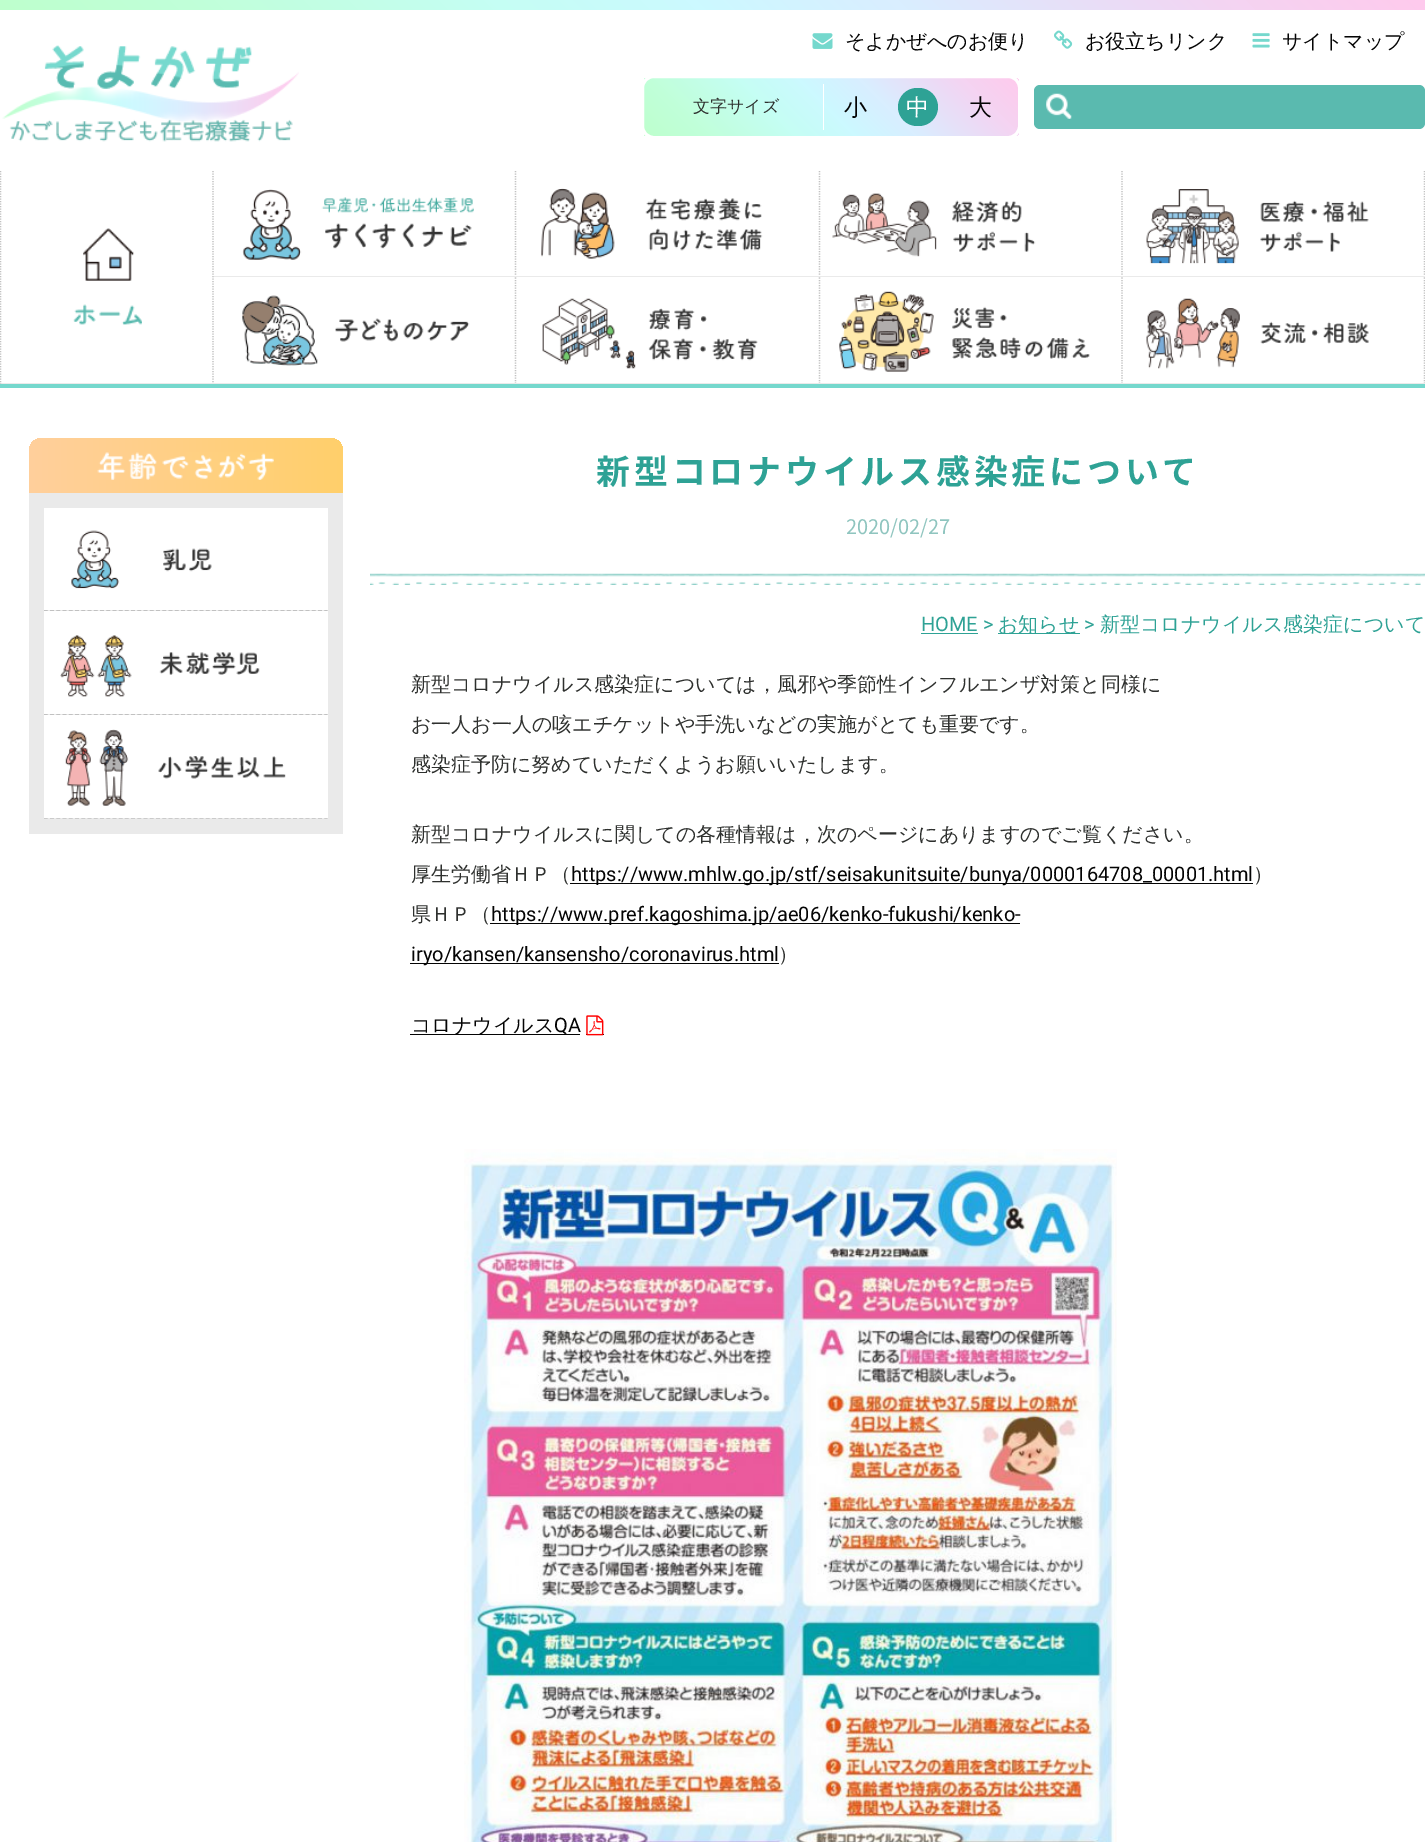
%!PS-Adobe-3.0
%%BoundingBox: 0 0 1425 1842
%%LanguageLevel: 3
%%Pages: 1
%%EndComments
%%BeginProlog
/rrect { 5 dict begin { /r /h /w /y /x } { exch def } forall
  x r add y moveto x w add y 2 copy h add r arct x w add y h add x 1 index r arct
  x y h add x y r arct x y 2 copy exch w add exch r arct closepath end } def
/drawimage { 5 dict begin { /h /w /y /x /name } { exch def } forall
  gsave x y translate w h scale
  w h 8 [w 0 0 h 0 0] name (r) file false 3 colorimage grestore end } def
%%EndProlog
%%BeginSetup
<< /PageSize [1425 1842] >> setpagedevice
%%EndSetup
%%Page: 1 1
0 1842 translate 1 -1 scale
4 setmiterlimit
1 setgray
0 0 1425 1842 rectfill
gsave newpath 0 0 moveto 1425 0 lineto 1425 10 lineto 0 10 lineto closepath clip newpath
<< /ShadingType 2 /ColorSpace /DeviceRGB /Coords [354 364 1071 -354] /Extend [true true] /Function << /FunctionType 3 /Domain [0 1] /Functions [<< /FunctionType 2 /Domain [0 1] /C0 [0.745 1 0.804] /C1 [0.753 1 0.847] /N 1 >> << /FunctionType 2 /Domain [0 1] /C0 [0.753 1 0.847] /C1 [0.773 0.996 0.957] /N 1 >> << /FunctionType 2 /Domain [0 1] /C0 [0.773 0.996 0.957] /C1 [0.8 0.976 1] /N 1 >> << /FunctionType 2 /Domain [0 1] /C0 [0.8 0.976 1] /C1 [0.851 0.933 1] /N 1 >> << /FunctionType 2 /Domain [0 1] /C0 [0.851 0.933 1] /C1 [0.957 0.831 0.949] /N 1 >> << /FunctionType 2 /Domain [0 1] /C0 [0.957 0.831 0.949] /C1 [1 0.792 0.929] /N 1 >>] /Bounds [0.13 0.35 0.49 0.63 0.86] /Encode [0 1 0 1 0 1 0 1 0 1 0 1] >> >> shfill grestore
(images/1.raw) 2 45 297 97 drawimage
(images/2.raw) 812 33 21 16 drawimage
(images/3.raw) 1054 30 19 19 drawimage
(images/4.raw) 1252 33 18 15 drawimage
gsave
641 75 380 64 13 rrect clip newpath
gsave newpath 644 78 moveto 1019 78 lineto 1019 136 lineto 644 136 lineto closepath clip newpath
<< /ShadingType 2 /ColorSpace /DeviceRGB /Coords [723 215 940 -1.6] /Extend [true true] /Function << /FunctionType 3 /Domain [0 1] /Functions [<< /FunctionType 2 /Domain [0 1] /C0 [0.745 1 0.804] /C1 [0.753 1 0.847] /N 1 >> << /FunctionType 2 /Domain [0 1] /C0 [0.753 1 0.847] /C1 [0.773 0.996 0.957] /N 1 >> << /FunctionType 2 /Domain [0 1] /C0 [0.773 0.996 0.957] /C1 [0.8 0.976 1] /N 1 >> << /FunctionType 2 /Domain [0 1] /C0 [0.8 0.976 1] /C1 [0.851 0.933 1] /N 1 >> << /FunctionType 2 /Domain [0 1] /C0 [0.851 0.933 1] /C1 [0.957 0.831 0.949] /N 1 >> << /FunctionType 2 /Domain [0 1] /C0 [0.957 0.831 0.949] /C1 [1 0.792 0.929] /N 1 >>] /Bounds [0.13 0.35 0.49 0.63 0.86] /Encode [0 1 0 1 0 1 0 1 0 1 0 1] >> >> shfill grestore
grestore
3 setlinewidth
642.5 76.5 377 61 11.5 rrect stroke
823 84 1 46 rectfill
0.18 0.635 0.584 setrgbcolor
898 88 40 38 19 rrect fill
0.353 0.729 0.686 setrgbcolor
1034 85 391 44 6 rrect fill
(images/5.raw) 1046 93 26 26 drawimage
0.459 0.847 0.804 setrgbcolor
0 384 1425 4 rectfill
0.757 setgray
1.2 setlinewidth
[1.25 1.25] 0 setdash
newpath 213 171 moveto 213 384 lineto stroke
0.918 setgray
0 383 214 1 rectfill
0.757 setgray
newpath 0.5 171 moveto 0.5 384 lineto stroke
(images/6.raw) 73 228 69 97 drawimage
newpath 515.5 171 moveto 515.5 277.5 lineto stroke
0.918 setgray
214 276 302 1 rectfill
(images/7.raw) 242 189 232 71 drawimage
0.757 setgray
newpath 819.5 171 moveto 819.5 277.5 lineto stroke
0.918 setgray
516 276 304 1 rectfill
(images/8.raw) 541 188 222 71 drawimage
0.757 setgray
newpath 1122 171 moveto 1122 277.5 lineto stroke
0.918 setgray
820 276 303 1 rectfill
(images/9.raw) 832 193 204 64 drawimage
0.757 setgray
newpath 1424.5 171 moveto 1424.5 277.5 lineto stroke
0.918 setgray
1123 276 302 1 rectfill
(images/10.raw) 1146 189 223 75 drawimage
0.757 setgray
newpath 515.5 277.5 moveto 515.5 384 lineto stroke
0.918 setgray
214 383 302 1 rectfill
(images/11.raw) 242 295 228 71 drawimage
0.757 setgray
newpath 819.5 277.5 moveto 819.5 384 lineto stroke
0.918 setgray
516 383 304 1 rectfill
(images/12.raw) 542 298 216 71 drawimage
0.757 setgray
newpath 1122 277.5 moveto 1122 384 lineto stroke
0.918 setgray
820 383 303 1 rectfill
(images/13.raw) 839 291 251 81 drawimage
0.757 setgray
newpath 1424.5 277.5 moveto 1424.5 384 lineto stroke
0.918 setgray
1123 383 302 1 rectfill
(images/14.raw) 1146 298 223 71 drawimage
gsave newpath 42 438 moveto 330 438 lineto 337 438 343 444 343 451 curveto 343 493 lineto 29 493 lineto 29 451 lineto 29 444 35 438 42 438 curveto closepath clip newpath
<< /ShadingType 2 /ColorSpace /DeviceRGB /Coords [29 465 343 465] /Extend [true true] /Function << /FunctionType 2 /Domain [0 1] /C0 [1 0.812 0.612] /C1 [1 0.816 0.42] /N 1 >> >> shfill grestore
(images/15.raw) 97 452 177 28 drawimage
29 493 314 341 rectfill
0.757 setgray
[3.75 2.48] 0 setdash
newpath 44 610.5 moveto 327.5 610.5 lineto stroke
1 setgray
44 508 284 102 rectfill
(images/16.raw) 71 530 141 59 drawimage
0.757 setgray
newpath 44 714.5 moveto 327.5 714.5 lineto stroke
1 setgray
44 611 284 103 rectfill
(images/17.raw) 60 635 200 62 drawimage
0.757 setgray
newpath 44 818 moveto 327.5 818 lineto stroke
1 setgray
44 715 284 103 rectfill
(images/18.raw) 65 729 221 77 drawimage
(images/19.raw) 370 573 1055 12 drawimage
0.18 0.635 0.584 setrgbcolor
921 633 57 1 rectfill
998 633 82 1 rectfill
0.016 setgray
570 883 683 1 rectfill
490 923 530 1 rectfill
410 963 369 1 rectfill
410 1034 170 1 rectfill
586 1034 18 1 rectfill
(images/20.raw) 586 1015 18 21 drawimage
(images/21.raw) 464 1149 653 693 drawimage
/WenQuanYiZenHei-Medium [20 0 0 -20 0 0] selectfont
845 48 moveto (そよかぜへのお便り) show
1085 48 moveto (お役立ちリンク) show
1282 48 moveto (サイトマップ) show
/WenQuanYiZenHei-Medium [17 0 0 -17 0 0] selectfont
0.18 0.188 0.18 setrgbcolor
693 112 moveto (文字サイズ) show
/WenQuanYiZenHei-Medium [23 0 0 -23 0 0] selectfont
0.016 setgray
844 115 moveto (小) show
1 setgray
906 115 moveto (中) show
0.016 setgray
969 115 moveto (大) show
/NotoSansJP-Bold [34 0 0 -34 0 0] selectfont
0.18 0.635 0.584 setrgbcolor
596 484 moveto 3.75 0 (新型コロナウイルス感染症について) ashow
/NotoSansJP-Regular [20 0 0 -20 0 0] selectfont
0.561 0.773 0.749 setrgbcolor
846 534 moveto (2020/02/27) show
/Roboto-Regular [20 0 0 -20 0 0] selectfont
0.18 0.635 0.584 setrgbcolor
921 631 moveto (HOME >) show
/WenQuanYiZenHei-Medium [20 0 0 -20 0 0] selectfont
998 631 moveto (お知らせ) show
/Roboto-Regular [20 0 0 -20 0 0] selectfont
1084 631 moveto (>) show
/WenQuanYiZenHei-Medium [20 0 0 -20 0 0] selectfont
1100 631 moveto (新型コロナウイルス感染症について) show
0.18 0.188 0.18 setrgbcolor
411 691 moveto (新型コロナウイルス感染症については，風邪や季節性インフルエンザ対策と同様に) show
411 731 moveto (お一人お一人の咳エチケットや手洗いなどの実施がとても重要です。) show
411 771 moveto (感染症予防に努めていただくようお願いいたします。) show
411 841 moveto (新型コロナウイルスに関しての各種情報は，次のページにありますのでご覧ください。) show
411 881 moveto (厚生労働省ＨＰ（) show
/Roboto-Regular [20 0 0 -20 0 0] selectfont
0.016 setgray
571 881 moveto (https://www.mhlw.go.jp/stf/seisakunitsuite/bunya/0000164708_00001.html) show
/WenQuanYiZenHei-Medium [20 0 0 -20 0 0] selectfont
0.18 0.188 0.18 setrgbcolor
1253 881 moveto (）) show
411 921 moveto (県ＨＰ（) show
/Roboto-Regular [20 0 0 -20 0 0] selectfont
0.016 setgray
491 921 moveto (https://www.pref.kagoshima.jp/ae06/kenko-fukushi/kenko-) show
411 961 moveto (iryo/kansen/kansensho/coronavirus.html) show
/WenQuanYiZenHei-Medium [20 0 0 -20 0 0] selectfont
0.18 0.188 0.18 setrgbcolor
778 961 moveto (）) show
0.016 setgray
411 1032 moveto (コロナウイルス) show
/Roboto-Regular [20 0 0 -20 0 0] selectfont
554 1032 moveto (QA) show
showpage
%%EOF
